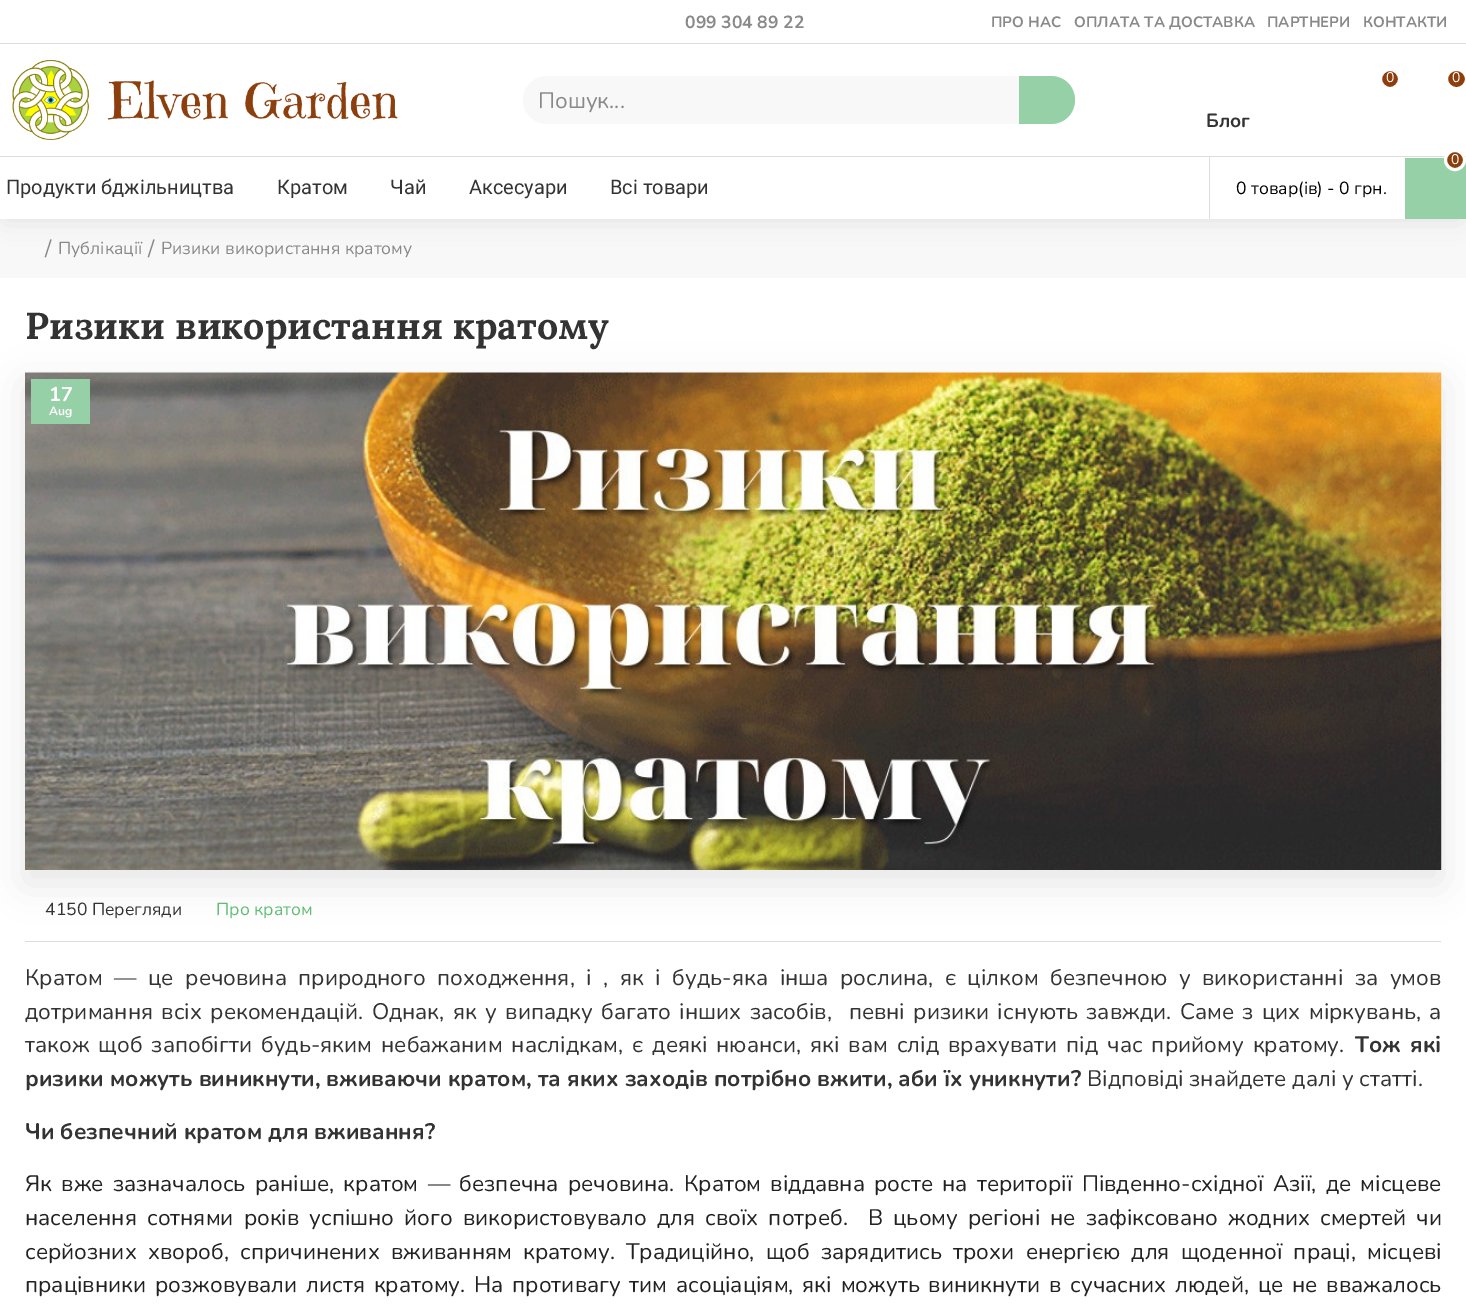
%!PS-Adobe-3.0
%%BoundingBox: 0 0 1466 1313
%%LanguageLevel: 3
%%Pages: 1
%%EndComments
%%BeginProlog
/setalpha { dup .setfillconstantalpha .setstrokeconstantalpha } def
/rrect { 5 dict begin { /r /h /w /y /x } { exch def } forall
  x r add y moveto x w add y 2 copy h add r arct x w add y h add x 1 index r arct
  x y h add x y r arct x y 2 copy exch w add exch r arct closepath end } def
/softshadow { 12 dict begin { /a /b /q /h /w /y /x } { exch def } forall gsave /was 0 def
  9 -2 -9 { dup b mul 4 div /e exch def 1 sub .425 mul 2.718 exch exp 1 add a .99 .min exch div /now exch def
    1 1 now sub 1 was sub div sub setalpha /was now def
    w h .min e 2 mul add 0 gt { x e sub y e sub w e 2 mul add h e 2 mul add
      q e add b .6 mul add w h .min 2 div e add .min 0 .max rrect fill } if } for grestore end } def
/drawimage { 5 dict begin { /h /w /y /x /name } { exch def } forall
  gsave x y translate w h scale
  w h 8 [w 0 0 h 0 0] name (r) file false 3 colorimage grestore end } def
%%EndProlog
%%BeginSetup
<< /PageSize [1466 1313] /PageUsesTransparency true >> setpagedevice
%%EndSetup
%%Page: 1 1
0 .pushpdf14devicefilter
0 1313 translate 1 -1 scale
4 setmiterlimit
1 setgray
0 0 1466 1313 rectfill
0.973 setgray
0 219 1466 59 rectfill
0 setgray
6 13 1454 206 0 12.5 0.1 softshadow
1 setgray
0 0 1466 219 rectfill
(images/1.raw) 12 60 386 80 drawimage
0.973 setgray
newpath 547 76 moveto 1019 76 lineto 1019 124 lineto 547 124 lineto 533.5 124 523 113.5 523 100 curveto 523 86.5 533.5 76 547 76 curveto closepath fill
0.584 0.816 0.651 setrgbcolor
newpath 1019 76 moveto 1051 76 lineto 1064.5 76 1075 86.5 1075 100 curveto 1075 113.5 1064.5 124 1051 124 curveto 1019 124 lineto closepath fill
0.549 0.243 0.051 setrgbcolor
newpath 1390 79 9.5 0 360 arc closepath gsave fill grestore
1 setgray
3 setlinewidth
stroke
0.549 0.243 0.051 setrgbcolor
1446.5 69.5 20 19 9.5 rrect gsave fill grestore
1 setgray
stroke
0.867 setgray
0 156 1466 1 rectfill
1209 156 1 63 rectfill
0.584 0.816 0.651 setrgbcolor
1405 158 61 61 rectfill
0.549 0.243 0.051 setrgbcolor
newpath 1455 160 9.5 0 360 arc closepath gsave fill grestore
1 setgray
stroke
0.867 setgray
0 43 1466 1 rectfill
0 setgray
25 385 1416 498 0 19 0.1 softshadow
(images/2.raw) 25 372 1417 498 drawimage
0.584 0.816 0.651 setrgbcolor
31 379 59 45 rectfill
0.867 setgray
25 941 1416 1 rectfill
/Nunito-Bold [17.5 0 0 -17.5 0 0] selectfont
0.537 setgray
685 28 moveto (099 304 89 22) show
/Nunito-Bold [15 0 0 -15 0 0] selectfont
991 27 moveto (ПРО НАС) show
1074 27 moveto (ОПЛАТА ТА ДОСТАВКА) show
1267 27 moveto (ПАРТНЕРИ) show
1363 27 moveto (КОНТАКТИ) show
/Nunito-Regular [22.5 0 0 -22.5 0 0] selectfont
538 108 moveto (Пошук...) show
/Nunito-Regular [14 0 0 -14 0 0] selectfont
1 setgray
1386 82 moveto (0) show
1452 82 moveto (0) show
/Nunito-Bold [19 0 0 -19 0 0] selectfont
0.2 setgray
1206 127 moveto (Блог) show
/Nunito-Regular [14 0 0 -14 0 0] selectfont
1 setgray
1451 164 moveto (0) show
/Nunito-Regular [17.5 0 0 -17.5 0 0] selectfont
0 setgray
1236 194 moveto (0 товар\(ів\) - 0 грн.) show
/Roboto-Regular [20 0 0 -20 0 0] selectfont
0.2 setgray
6 194 moveto (Продукти бджільництва) show
277 194 moveto (Кратом) show
390 194 moveto (Чай) show
469 194 moveto (Аксесуари) show
610 194 moveto (Всі товари) show
/Nunito-Regular [22.5 0 0 -22.5 0 0] selectfont
0.537 setgray
45 256 moveto (/) show
/Nunito-Regular [17.5 0 0 -17.5 0 0] selectfont
58 254 moveto (Публікації) show
/Nunito-Regular [22.5 0 0 -22.5 0 0] selectfont
148 256 moveto (/) show
/Nunito-Regular [17.5 0 0 -17.5 0 0] selectfont
161 254 moveto (Ризики використання кратому) show
/Lora-Bold [37.5 0 0 -37.5 0 0] selectfont
0.2 setgray
25 339 moveto (Ризики використання кратому) show
/Nunito-Bold [20 0 0 -20 0 0] selectfont
1 setgray
49 401 moveto (17) show
/Nunito-Bold [12 0 0 -12 0 0] selectfont
49 415 moveto (Aug) show
/Nunito-Regular [17.5 0 0 -17.5 0 0] selectfont
0.2 setgray
45 915 moveto (4150 Перегляди) show
0.373 0.741 0.455 setrgbcolor
216 915 moveto (Про кратом) show
/Nunito-Regular [22.5 0 0 -22.5 0 0] selectfont
0.2 setgray
25 985 moveto 5.75 0 32 (Кратом — це речовина природного походження, і , як і будь-яка інша рослина, є цілком безпечною у використанні за умов) widthshow
25 1019 moveto 2.6 0 32 (дотримання всіх рекомендацій. Однак, як у випадку багато інших засобів,  певні ризики існують завжди. Саме з цих міркувань, а) widthshow
25 1052 moveto 3.25 0 32 (також щоб запобігти будь-яким небажаним наслідкам, є деякі нюанси, які вам слід врахувати під час прийому кратому.) widthshow
/Nunito-Bold [22.5 0 0 -22.5 0 0] selectfont
1355 1052 moveto 3.25 0 32 (Тож які) widthshow
25 1086 moveto (ризики можуть виникнути, вживаючи кратом, та яких заходів потрібно вжити, аби їх уникнути?) show
/Nunito-Regular [22.5 0 0 -22.5 0 0] selectfont
1087 1086 moveto (Відповіді знайдете далі у статті.) show
/Nunito-Bold [22.5 0 0 -22.5 0 0] selectfont
25 1139 moveto (Чи безпечний кратом для вживання?) show
/Nunito-Regular [22.5 0 0 -22.5 0 0] selectfont
0.133 setgray
25 1191 moveto 3.5 0 32 (Як вже зазначалось раніше, кратом — безпечна речовина. Кратом віддавна росте на території Південно-східної Азії, де місцеве) widthshow
25 1225 moveto 4.25 0 32 (населення сотнями років успішно його використовувало для своїх потреб.  В цьому регіоні не зафіксовано жодних смертей чи) widthshow
25 1259 moveto 5.4 0 32 (серйозних хвороб, спричинених вживанням кратому. Традиційно, щоб зарядитись трохи енергією для щоденної праці, місцеві) widthshow
25 1292 moveto 3 0 32 (працівники розжовували листя кратому. На противагу тим асоціаціям, які можуть виникнути в сучасних людей, це не вважалось) widthshow
.poppdf14devicefilter showpage
%%EOF
